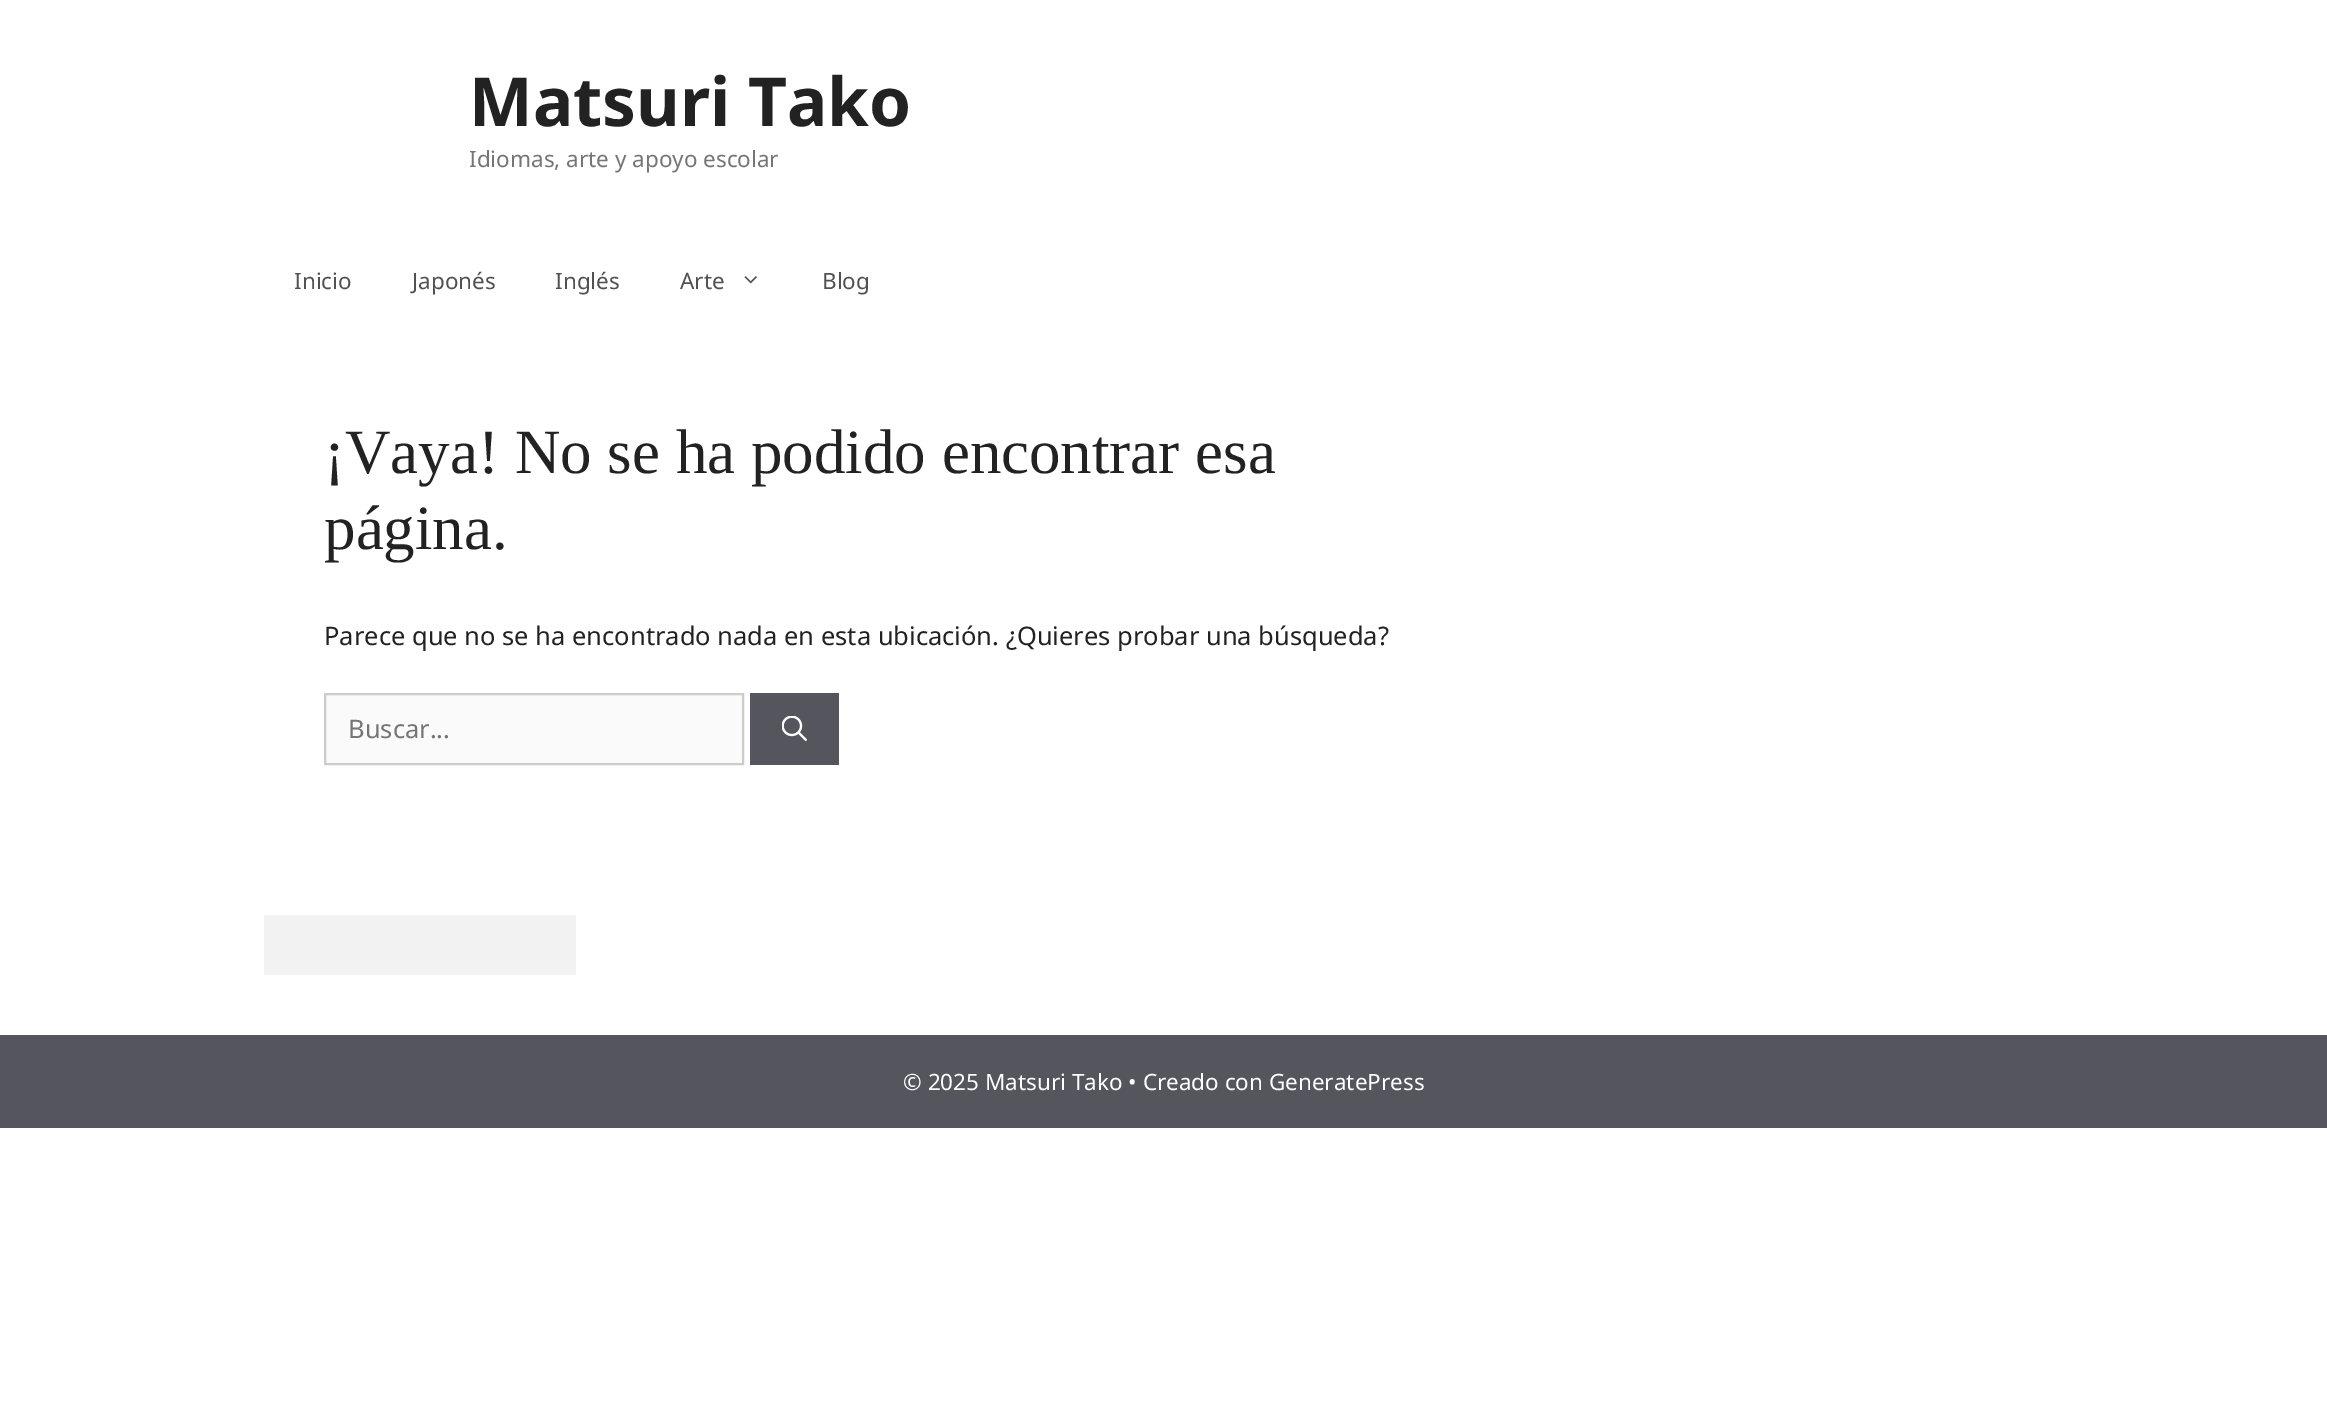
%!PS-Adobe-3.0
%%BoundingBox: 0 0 2327 1417
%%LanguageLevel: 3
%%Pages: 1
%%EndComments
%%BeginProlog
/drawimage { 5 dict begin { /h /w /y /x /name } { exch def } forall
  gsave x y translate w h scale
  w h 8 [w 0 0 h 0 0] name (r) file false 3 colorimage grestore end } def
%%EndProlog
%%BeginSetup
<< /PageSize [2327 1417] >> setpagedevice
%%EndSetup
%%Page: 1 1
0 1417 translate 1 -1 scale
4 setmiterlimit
1 setgray
0 0 2327 1417 rectfill
(images/1.raw) 744 276 13 8 drawimage
0.98 setgray
newpath 325 694 moveto 743 694 lineto 743 764 lineto 325 764 lineto closepath gsave fill grestore
0.8 setgray
2 setlinewidth
stroke
0.333 0.333 0.369 setrgbcolor
750 693 89 72 rectfill
(images/2.raw) 782 716 25 25 drawimage
0.949 setgray
264 915 312 60 rectfill
0.333 0.333 0.369 setrgbcolor
0 1035 2327 93 rectfill
/NotoSans-Bold [67.5 0 0 -67.5 0 0] selectfont
0.133 setgray
469 126 moveto (Matsuri Tako) show
/NotoSans-Regular [22.5 0 0 -22.5 0 0] selectfont
0.459 setgray
469 167 moveto (Idiomas, arte y apoyo escolar) show
0.318 setgray
294 289 moveto (Inicio) show
412 289 moveto (Japonés) show
555 289 moveto (Inglés) show
680 289 moveto (Arte) show
822 289 moveto (Blog) show
/LiberationSerif-Regular [63 0 0 -63 0 0] selectfont
0.133 setgray
324 473 moveto (¡Vaya! No se ha podido encontrar esa) show
324 549 moveto (página.) show
/NotoSans-Regular [25.5 0 0 -25.5 0 0] selectfont
324 645 moveto (Parece que no se ha encontrado nada en esta ubicación. ¿Quieres probar una búsqueda?) show
0.459 setgray
348 738 moveto (Buscar...) show
/NotoSans-Regular [22.5 0 0 -22.5 0 0] selectfont
1 setgray
903 1090 moveto (© 2025 Matsuri Tako • Creado con GeneratePress) show
showpage
%%EOF
